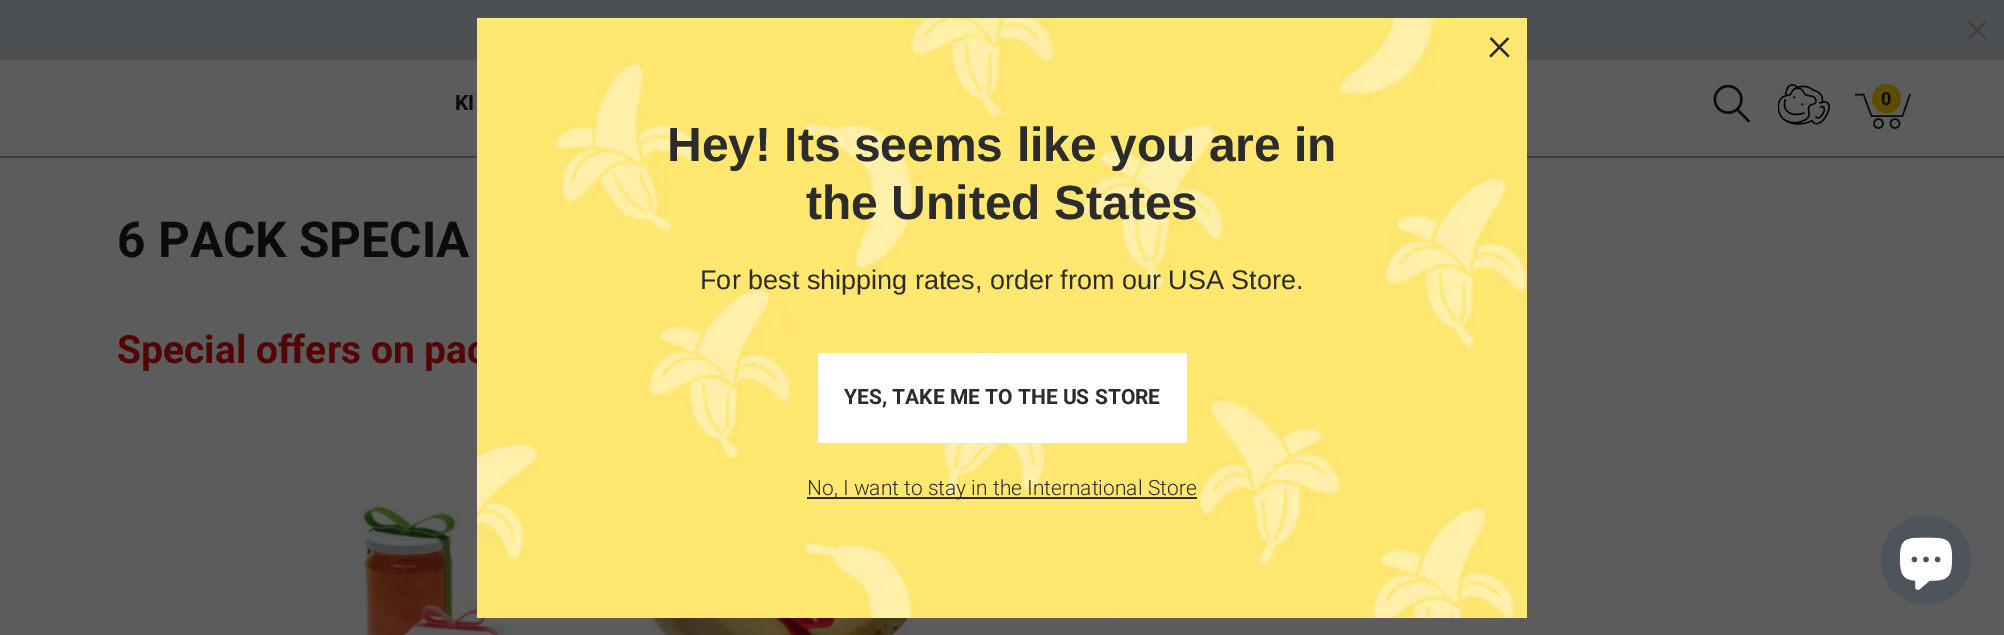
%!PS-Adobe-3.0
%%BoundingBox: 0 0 2004 635
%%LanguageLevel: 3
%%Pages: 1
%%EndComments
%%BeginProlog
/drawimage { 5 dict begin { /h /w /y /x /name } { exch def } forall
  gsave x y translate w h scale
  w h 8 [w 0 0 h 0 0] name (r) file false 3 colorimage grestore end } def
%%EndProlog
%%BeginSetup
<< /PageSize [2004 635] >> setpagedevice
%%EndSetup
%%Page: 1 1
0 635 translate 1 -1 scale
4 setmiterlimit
0.361 setgray
0 0 2004 635 rectfill
0.243 setgray
0 156 2004 2 rectfill
0.302 0.314 0.322 setrgbcolor
0 0 2004 60 rectfill
0.243 setgray
1.8 setlinewidth
1 setlinecap
1 setlinejoin
newpath 1969 22 moveto 1985.5 38.5 lineto 1969 38.5 moveto 1985.5 22 lineto stroke
(images/2.raw) 1713 84 37 39 drawimage
(images/3.raw) 1778 84 52 41 drawimage
0.361 0.298 0 setrgbcolor
newpath 1886.5 98.5 14.5 0 360 arc closepath fill
0.043 setgray
1.5 setlinewidth
newpath 1910 94.5 moveto 1902.5 116 lineto 1871.5 116 lineto 1863.5 94.5 lineto 1855.5 94.5 lineto stroke
0 setlinecap
0 setlinejoin
newpath 1878.5 123.5 4.5 0 360 arc closepath stroke
newpath 1895 123.5 4.5 0 360 arc closepath stroke
(images/4.raw) 362 501 143 134 drawimage
(images/5.raw) 573 618 352 17 drawimage
0.306 0.329 0.361 setrgbcolor
newpath 1926 560 45 0 360 arc closepath fill
(images/6.raw) 1899 537 54 53 drawimage
/Roboto-Bold [21 0 0 -21 0 0] selectfont
0.043 setgray
455 110 moveto (KI) show
/Roboto-Bold [18 0 0 -18 0 0] selectfont
1881 105 moveto (0) show
/Roboto-Bold [49.5 0 0 -49.5 0 0] selectfont
117 257 moveto (6 PACK SPECIA) show
/Roboto-Bold [39 0 0 -39 0 0] selectfont
0.329 0.016 0.016 setrgbcolor
117 363 moveto (Special offers on pac) show
(images/1.raw) 477 18 1050 600 drawimage
/Roboto-Light [48 0 0 -48 0 0] selectfont
0.173 setgray
1487 60 moveto (×) show
807 497 390 2 rectfill
/Roboto-Light [21 0 0 -21 0 0] selectfont
807 495 moveto (No, I want to stay in the International Store) show
1 setgray
818 353 369 90 rectfill
/Roboto-Bold [21 0 0 -21 0 0] selectfont
0.173 setgray
844 404 moveto (YES, TAKE ME TO THE US STORE) show
/LiberationSans-Regular [27 0 0 -27 0 0] selectfont
700 289 moveto (For best shipping rates, order from our USA Store.) show
/LiberationSans-Bold [48 0 0 -48 0 0] selectfont
806 219 moveto (the United States) show
667 161 moveto (Hey! Its seems like you are in) show
showpage
%%EOF
